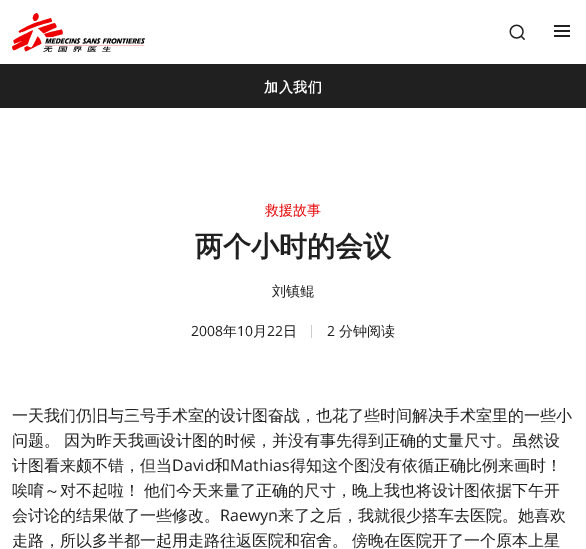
%!PS-Adobe-3.0
%%BoundingBox: 0 0 586 549
%%LanguageLevel: 3
%%Pages: 1
%%EndComments
%%BeginProlog
/drawimage { 5 dict begin { /h /w /y /x /name } { exch def } forall
  gsave x y translate w h scale
  w h 8 [w 0 0 h 0 0] name (r) file false 3 colorimage grestore end } def
%%EndProlog
%%BeginSetup
<< /PageSize [586 549] >> setpagedevice
%%EndSetup
%%Page: 1 1
0 549 translate 1 -1 scale
4 setmiterlimit
1 setgray
0 0 586 549 rectfill
(images/1.raw) 12 13 133 39 drawimage
(images/2.raw) 509 24 16 16 drawimage
0.125 setgray
554 25 16 2 rectfill
554 30 16 2 rectfill
554 35 16 2 rectfill
0 64 586 44 rectfill
0.8 setgray
311 325 1 13 rectfill
/WenQuanYiZenHei-Bold [14 0 0 -14 0 0] selectfont
1 setgray
264 92 moveto 0.5 0 (加入我们) ashow
/WenQuanYiZenHei-Medium [14 0 0 -14 0 0] selectfont
0.894 0 0 setrgbcolor
265 215 moveto (救援故事) show
/WenQuanYiZenHei-Bold [28 0 0 -28 0 0] selectfont
0.125 setgray
195 256 moveto (两个小时的会议) show
/WenQuanYiZenHei-Medium [14 0 0 -14 0 0] selectfont
272 296 moveto (刘镇鲲) show
/OpenSans-Regular [14 0 0 -14 0 0] selectfont
191 336 moveto (2008) show
/WenQuanYiZenHei-Medium [14 0 0 -14 0 0] selectfont
223 336 moveto (年) show
/OpenSans-Regular [14 0 0 -14 0 0] selectfont
237 336 moveto (10) show
/WenQuanYiZenHei-Medium [14 0 0 -14 0 0] selectfont
253 336 moveto (月) show
/OpenSans-Regular [14 0 0 -14 0 0] selectfont
267 336 moveto (22) show
/WenQuanYiZenHei-Medium [14 0 0 -14 0 0] selectfont
283 336 moveto (日) show
/OpenSans-Regular [14 0 0 -14 0 0] selectfont
327 336 moveto (2) show
/WenQuanYiZenHei-Medium [14 0 0 -14 0 0] selectfont
339 336 moveto (分钟阅读) show
/WenQuanYiZenHei-Medium [16 0 0 -16 0 0] selectfont
12 421 moveto (一天我们仍旧与三号手术室的设计图奋战，也花了些时间解决手术室里的一些小) show
12 446 moveto (问题。) show
64 446 moveto (因为昨天我画设计图的时候，并没有事先得到正确的丈量尺寸。虽然设) show
12 471 moveto (计图看来颇不错，但当) show
/OpenSans-Regular [16 0 0 -16 0 0] selectfont
172 471 moveto (David) show
/WenQuanYiZenHei-Medium [16 0 0 -16 0 0] selectfont
214 471 moveto (和) show
/OpenSans-Regular [16 0 0 -16 0 0] selectfont
230 471 moveto (Mathias) show
/WenQuanYiZenHei-Medium [16 0 0 -16 0 0] selectfont
290 471 moveto (得知这个图没有依循正确比例来画时！) show
12 496 moveto (唉唷～对不起啦！) show
144 496 moveto (他们今天来量了正确的尺寸，晚上我也将设计图依据下午开) show
12 521 moveto (会讨论的结果做了一些修改。) show
/OpenSans-Regular [16 0 0 -16 0 0] selectfont
220 521 moveto (Raewyn) show
/WenQuanYiZenHei-Medium [16 0 0 -16 0 0] selectfont
278 521 moveto (来了之后，我就很少搭车去医院。她喜欢) show
12 546 moveto (走路，所以多半都一起用走路往返医院和宿舍。) show
352 546 moveto (傍晚在医院开了一个原本上星) show
showpage
%%EOF
